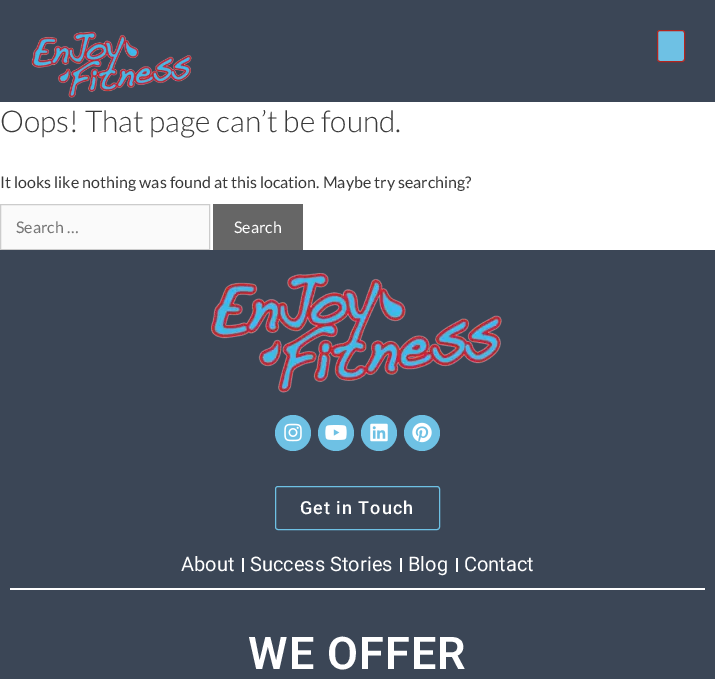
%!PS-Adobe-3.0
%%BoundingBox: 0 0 715 679
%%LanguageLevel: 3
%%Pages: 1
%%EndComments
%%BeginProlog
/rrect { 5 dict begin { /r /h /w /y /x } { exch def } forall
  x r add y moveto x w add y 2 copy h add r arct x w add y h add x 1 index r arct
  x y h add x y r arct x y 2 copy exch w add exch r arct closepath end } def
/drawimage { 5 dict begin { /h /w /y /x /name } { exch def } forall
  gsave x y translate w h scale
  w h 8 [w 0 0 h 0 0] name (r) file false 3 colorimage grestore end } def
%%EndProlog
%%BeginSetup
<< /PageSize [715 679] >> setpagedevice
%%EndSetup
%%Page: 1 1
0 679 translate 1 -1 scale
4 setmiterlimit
1 setgray
0 0 715 679 rectfill
0.231 0.275 0.337 setrgbcolor
0 0 715 102 rectfill
(images/1.raw) 31 31 161 67 drawimage
0.431 0.757 0.894 setrgbcolor
657.5 30.5 27 31 2.5 rrect gsave fill grestore
0.706 0.141 0.114 setrgbcolor
stroke
0.98 setgray
newpath 0.5 204.5 moveto 209.5 204.5 lineto 209.5 249.5 lineto 0.5 249.5 lineto closepath gsave fill grestore
0.8 setgray
stroke
0.4 setgray
213 204 90 46 rectfill
0.231 0.275 0.337 setrgbcolor
0 250 715 429 rectfill
1 setgray
10 588 695 2 rectfill
(images/2.raw) 211 273 291 120 drawimage
0.431 0.757 0.894 setrgbcolor
newpath 293 433 18 0 360 arc closepath fill
(images/3.raw) 284 423 18 19 drawimage
newpath 336 433 18 0 360 arc closepath fill
(images/4.raw) 325 425 22 15 drawimage
newpath 379 433 18 0 360 arc closepath fill
(images/5.raw) 370 423 18 19 drawimage
newpath 422 433 18 0 360 arc closepath fill
(images/6.raw) 412 422 20 21 drawimage
275.5 486.5 164 43 2.5 rrect stroke
1 setgray
242 558 2 14 rectfill
400 558 2 14 rectfill
456 558 2 14 rectfill
/Lato-Light [30 0 0 -30 0 0] selectfont
0.227 setgray
0 132 moveto (Oops! That page can’t be found.) show
/Lato-Regular [16 0 0 -16 0 0] selectfont
0 188 moveto (It looks like nothing was found at this location. Maybe try searching?) show
0.459 setgray
16 233 moveto (Search …) show
1 setgray
234 233 moveto (Search) show
/Roboto-Medium [18 0 0 -18 0 0] selectfont
300 514 moveto 1 0 (Get in Touch) ashow
/Roboto-Regular [20 0 0 -20 0 0] selectfont
181 571 moveto (About) show
250 571 moveto (Success Stories) show
408 571 moveto (Blog) show
464 571 moveto (Contact) show
/Roboto-SemiBold [45 0 0 -45 0 0] selectfont
248 669 moveto 1 0 (WE OFFER) ashow
showpage
%%EOF
